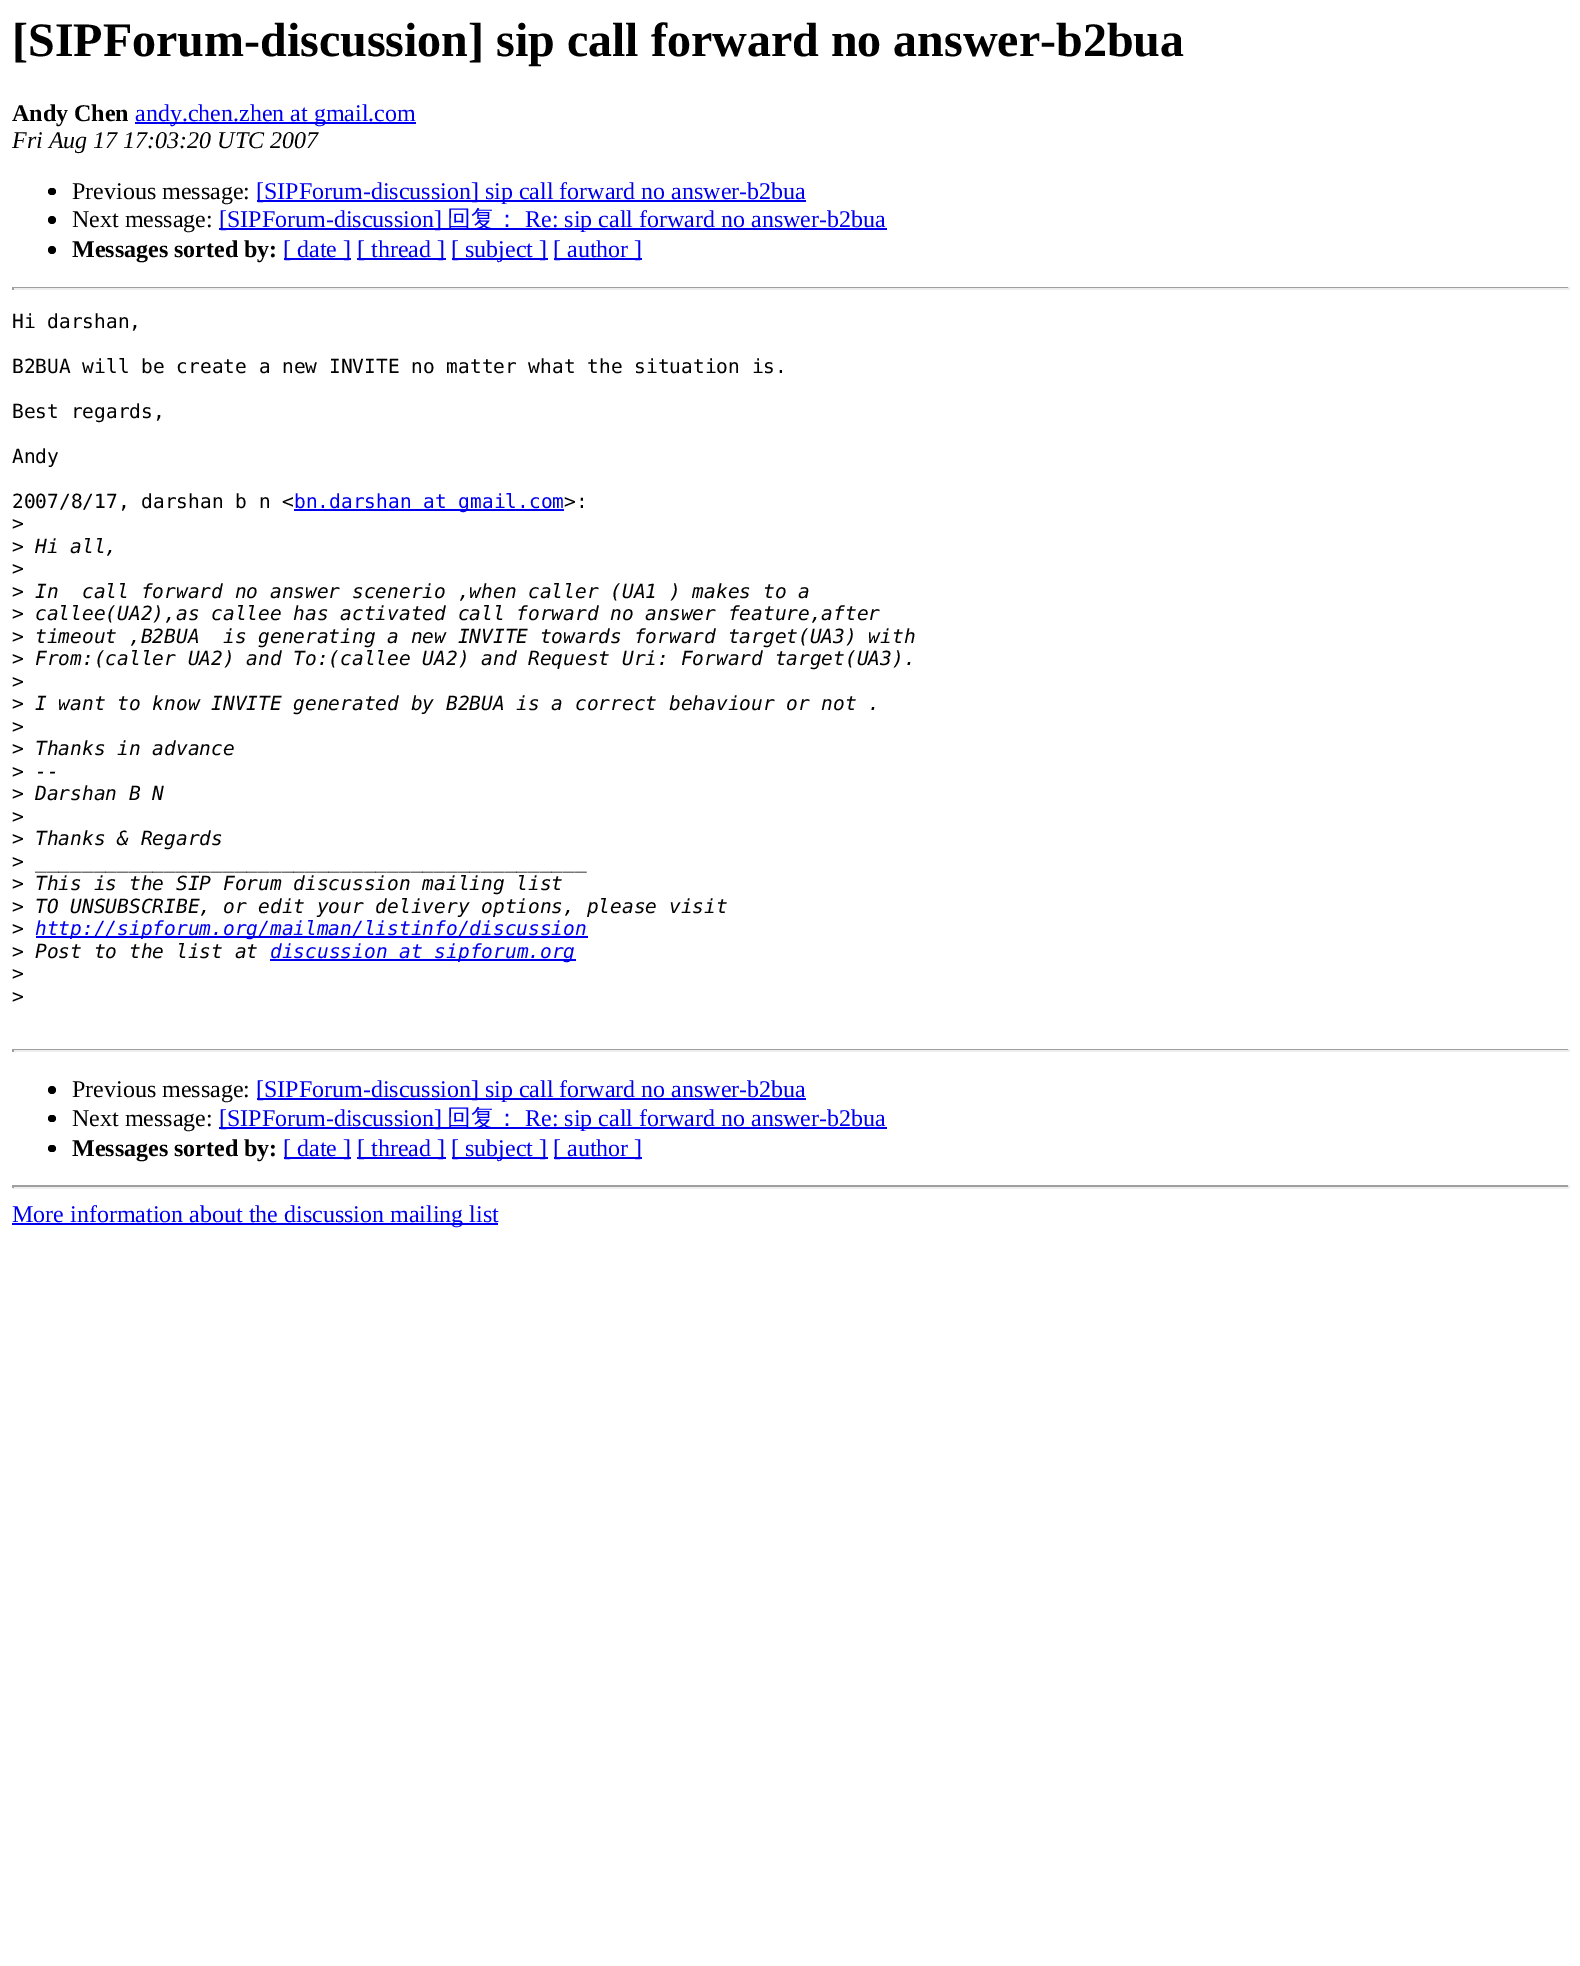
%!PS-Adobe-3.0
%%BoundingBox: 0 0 1580 1966
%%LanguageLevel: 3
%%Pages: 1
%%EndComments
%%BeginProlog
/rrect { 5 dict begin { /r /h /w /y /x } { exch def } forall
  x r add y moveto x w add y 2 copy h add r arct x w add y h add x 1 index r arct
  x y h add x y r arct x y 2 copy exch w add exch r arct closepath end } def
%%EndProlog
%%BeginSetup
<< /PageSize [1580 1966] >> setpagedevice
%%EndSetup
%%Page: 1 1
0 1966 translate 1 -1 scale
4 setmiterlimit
1 setgray
0 0 1580 1966 rectfill
0 0 0.933 setrgbcolor
135 122 281 2 rectfill
0 setgray
48 188 8 7 3.5 rrect fill
0 0 0.933 setrgbcolor
257 200 549 2 rectfill
0 setgray
newpath 52 220 4 0 360 arc closepath fill
0 0 0.933 setrgbcolor
219 228 668 2 rectfill
0 setgray
newpath 52 250 4 0 360 arc closepath fill
0 0 0.933 setrgbcolor
284 258 67 2 rectfill
357 258 89 2 rectfill
452 258 96 2 rectfill
554 258 88 2 rectfill
0.624 setgray
12 287 1557 1 rectfill
0.933 setgray
1568 287 2 3 rectfill
12 288 1557 2 rectfill
0.624 setgray
12 287 2 3 rectfill
0 0 0.933 setrgbcolor
294 509 270 2 rectfill
36 936 552 2 rectfill
270 959 306 2 rectfill
0.624 setgray
12 1049 1557 1 rectfill
0.933 setgray
1568 1049 2 3 rectfill
12 1050 1557 2 rectfill
0.624 setgray
12 1049 2 3 rectfill
0 setgray
newpath 52 1090 4 0 360 arc closepath fill
0 0 0.933 setrgbcolor
257 1098 549 2 rectfill
0 setgray
48 1115 8 7 3.5 rrect fill
0 0 0.933 setrgbcolor
219 1127 668 2 rectfill
0 setgray
48 1145 8 7 3.5 rrect fill
0 0 0.933 setrgbcolor
284 1157 67 2 rectfill
357 1157 89 2 rectfill
452 1157 96 2 rectfill
554 1157 88 2 rectfill
0.624 setgray
12 1185 1557 2 rectfill
0.933 setgray
1568 1185 2 3 rectfill
12 1187 1557 2 rectfill
0.624 setgray
12 1185 2 3 rectfill
0 0 0.933 setrgbcolor
12 1223 486 2 rectfill
/LiberationSerif-Bold [48 0 0 -48 0 0] selectfont
0 setgray
12 56 moveto ([SIPForum-discussion] sip call forward no answer-b2bua) show
/LiberationSerif-Bold [24 0 0 -24 0 0] selectfont
12 121 moveto (Andy Chen) show
/LiberationSerif-Regular [24 0 0 -24 0 0] selectfont
0 0 0.933 setrgbcolor
135 121 moveto (andy.chen.zhen at gmail.com) show
/LiberationSerif-Italic [24 0 0 -24 0 0] selectfont
0 setgray
12 148 moveto (Fri Aug 17 17:03:20 UTC 2007) show
/LiberationSerif-Regular [24 0 0 -24 0 0] selectfont
72 199 moveto (Previous message:) show
0 0 0.933 setrgbcolor
256 199 moveto ([SIPForum-discussion] sip call forward no answer-b2bua) show
0 setgray
72 227 moveto (Next message:) show
0 0 0.933 setrgbcolor
219 227 moveto ([SIPForum-discussion]) show
/WenQuanYiZenHei-Medium [24 0 0 -24 0 0] selectfont
447 227 moveto (回复：) show
/LiberationSerif-Regular [24 0 0 -24 0 0] selectfont
525 227 moveto (Re: sip call forward no answer-b2bua) show
/LiberationSerif-Bold [24 0 0 -24 0 0] selectfont
0 setgray
72 257 moveto (Messages sorted by:) show
/LiberationSerif-Regular [24 0 0 -24 0 0] selectfont
0 0 0.933 setrgbcolor
283 257 moveto ([ date ]) show
357 257 moveto ([ thread ]) show
451 257 moveto ([ subject ]) show
553 257 moveto ([ author ]) show
/DejaVuSansMono-Regular [19.5 0 0 -19.5 0 0] selectfont
0 setgray
12 328 moveto (Hi darshan,) show
12 373 moveto (B2BUA will be create a new INVITE no matter what the situation is.) show
12 418 moveto (Best regards,) show
12 463 moveto (Andy) show
12 508 moveto (2007/8/17, darshan b n <) show
0 0 0.933 setrgbcolor
294 508 moveto (bn.darshan at gmail.com) show
0 setgray
564 508 moveto (>:) show
12 530 moveto (>) show
12 553 moveto (>) show
/DejaVuSansMono-Italic [19.5 0 0 -19.5 0 0] selectfont
35 553 moveto (Hi all,) show
/DejaVuSansMono-Regular [19.5 0 0 -19.5 0 0] selectfont
12 575 moveto (>) show
12 598 moveto (>) show
/DejaVuSansMono-Italic [19.5 0 0 -19.5 0 0] selectfont
35 598 moveto (In  call forward no answer scenerio ,when caller \(UA1 \) makes to a) show
/DejaVuSansMono-Regular [19.5 0 0 -19.5 0 0] selectfont
12 620 moveto (>) show
/DejaVuSansMono-Italic [19.5 0 0 -19.5 0 0] selectfont
35 620 moveto (callee\(UA2\),as callee has activated call forward no answer feature,after) show
/DejaVuSansMono-Regular [19.5 0 0 -19.5 0 0] selectfont
12 643 moveto (>) show
/DejaVuSansMono-Italic [19.5 0 0 -19.5 0 0] selectfont
35 643 moveto (timeout ,B2BUA  is generating a new INVITE towards forward target\(UA3\) with) show
/DejaVuSansMono-Regular [19.5 0 0 -19.5 0 0] selectfont
12 665 moveto (>) show
/DejaVuSansMono-Italic [19.5 0 0 -19.5 0 0] selectfont
35 665 moveto (From:\(caller UA2\) and To:\(callee UA2\) and Request Uri: Forward target\(UA3\).) show
/DejaVuSansMono-Regular [19.5 0 0 -19.5 0 0] selectfont
12 688 moveto (>) show
12 710 moveto (>) show
/DejaVuSansMono-Italic [19.5 0 0 -19.5 0 0] selectfont
35 710 moveto (I want to know INVITE generated by B2BUA is a correct behaviour or not .) show
/DejaVuSansMono-Regular [19.5 0 0 -19.5 0 0] selectfont
12 733 moveto (>) show
12 755 moveto (>) show
/DejaVuSansMono-Italic [19.5 0 0 -19.5 0 0] selectfont
35 755 moveto (Thanks in advance) show
/DejaVuSansMono-Regular [19.5 0 0 -19.5 0 0] selectfont
12 778 moveto (>) show
/DejaVuSansMono-Italic [19.5 0 0 -19.5 0 0] selectfont
35 778 moveto (--) show
/DejaVuSansMono-Regular [19.5 0 0 -19.5 0 0] selectfont
12 800 moveto (>) show
/DejaVuSansMono-Italic [19.5 0 0 -19.5 0 0] selectfont
35 800 moveto (Darshan B N) show
/DejaVuSansMono-Regular [19.5 0 0 -19.5 0 0] selectfont
12 823 moveto (>) show
12 845 moveto (>) show
/DejaVuSansMono-Italic [19.5 0 0 -19.5 0 0] selectfont
35 845 moveto (Thanks & Regards) show
/DejaVuSansMono-Regular [19.5 0 0 -19.5 0 0] selectfont
12 868 moveto (>) show
/DejaVuSansMono-Italic [19.5 0 0 -19.5 0 0] selectfont
35 868 moveto (_______________________________________________) show
/DejaVuSansMono-Regular [19.5 0 0 -19.5 0 0] selectfont
12 890 moveto (>) show
/DejaVuSansMono-Italic [19.5 0 0 -19.5 0 0] selectfont
35 890 moveto (This is the SIP Forum discussion mailing list) show
/DejaVuSansMono-Regular [19.5 0 0 -19.5 0 0] selectfont
12 913 moveto (>) show
/DejaVuSansMono-Italic [19.5 0 0 -19.5 0 0] selectfont
35 913 moveto (TO UNSUBSCRIBE, or edit your delivery options, please visit) show
/DejaVuSansMono-Regular [19.5 0 0 -19.5 0 0] selectfont
12 935 moveto (>) show
/DejaVuSansMono-Italic [19.5 0 0 -19.5 0 0] selectfont
0 0 0.933 setrgbcolor
35 935 moveto (http://sipforum.org/mailman/listinfo/discussion) show
/DejaVuSansMono-Regular [19.5 0 0 -19.5 0 0] selectfont
0 setgray
12 958 moveto (>) show
/DejaVuSansMono-Italic [19.5 0 0 -19.5 0 0] selectfont
35 958 moveto (Post to the list at) show
0 0 0.933 setrgbcolor
270 958 moveto (discussion at sipforum.org) show
/DejaVuSansMono-Regular [19.5 0 0 -19.5 0 0] selectfont
0 setgray
12 980 moveto (>) show
12 1003 moveto (>) show
/LiberationSerif-Regular [24 0 0 -24 0 0] selectfont
72 1097 moveto (Previous message:) show
0 0 0.933 setrgbcolor
256 1097 moveto ([SIPForum-discussion] sip call forward no answer-b2bua) show
0 setgray
72 1126 moveto (Next message:) show
0 0 0.933 setrgbcolor
219 1126 moveto ([SIPForum-discussion]) show
/WenQuanYiZenHei-Medium [24 0 0 -24 0 0] selectfont
447 1126 moveto (回复：) show
/LiberationSerif-Regular [24 0 0 -24 0 0] selectfont
525 1126 moveto (Re: sip call forward no answer-b2bua) show
/LiberationSerif-Bold [24 0 0 -24 0 0] selectfont
0 setgray
72 1156 moveto (Messages sorted by:) show
/LiberationSerif-Regular [24 0 0 -24 0 0] selectfont
0 0 0.933 setrgbcolor
283 1156 moveto ([ date ]) show
357 1156 moveto ([ thread ]) show
451 1156 moveto ([ subject ]) show
553 1156 moveto ([ author ]) show
12 1222 moveto (More information about the discussion mailing list) show
showpage
%%EOF
